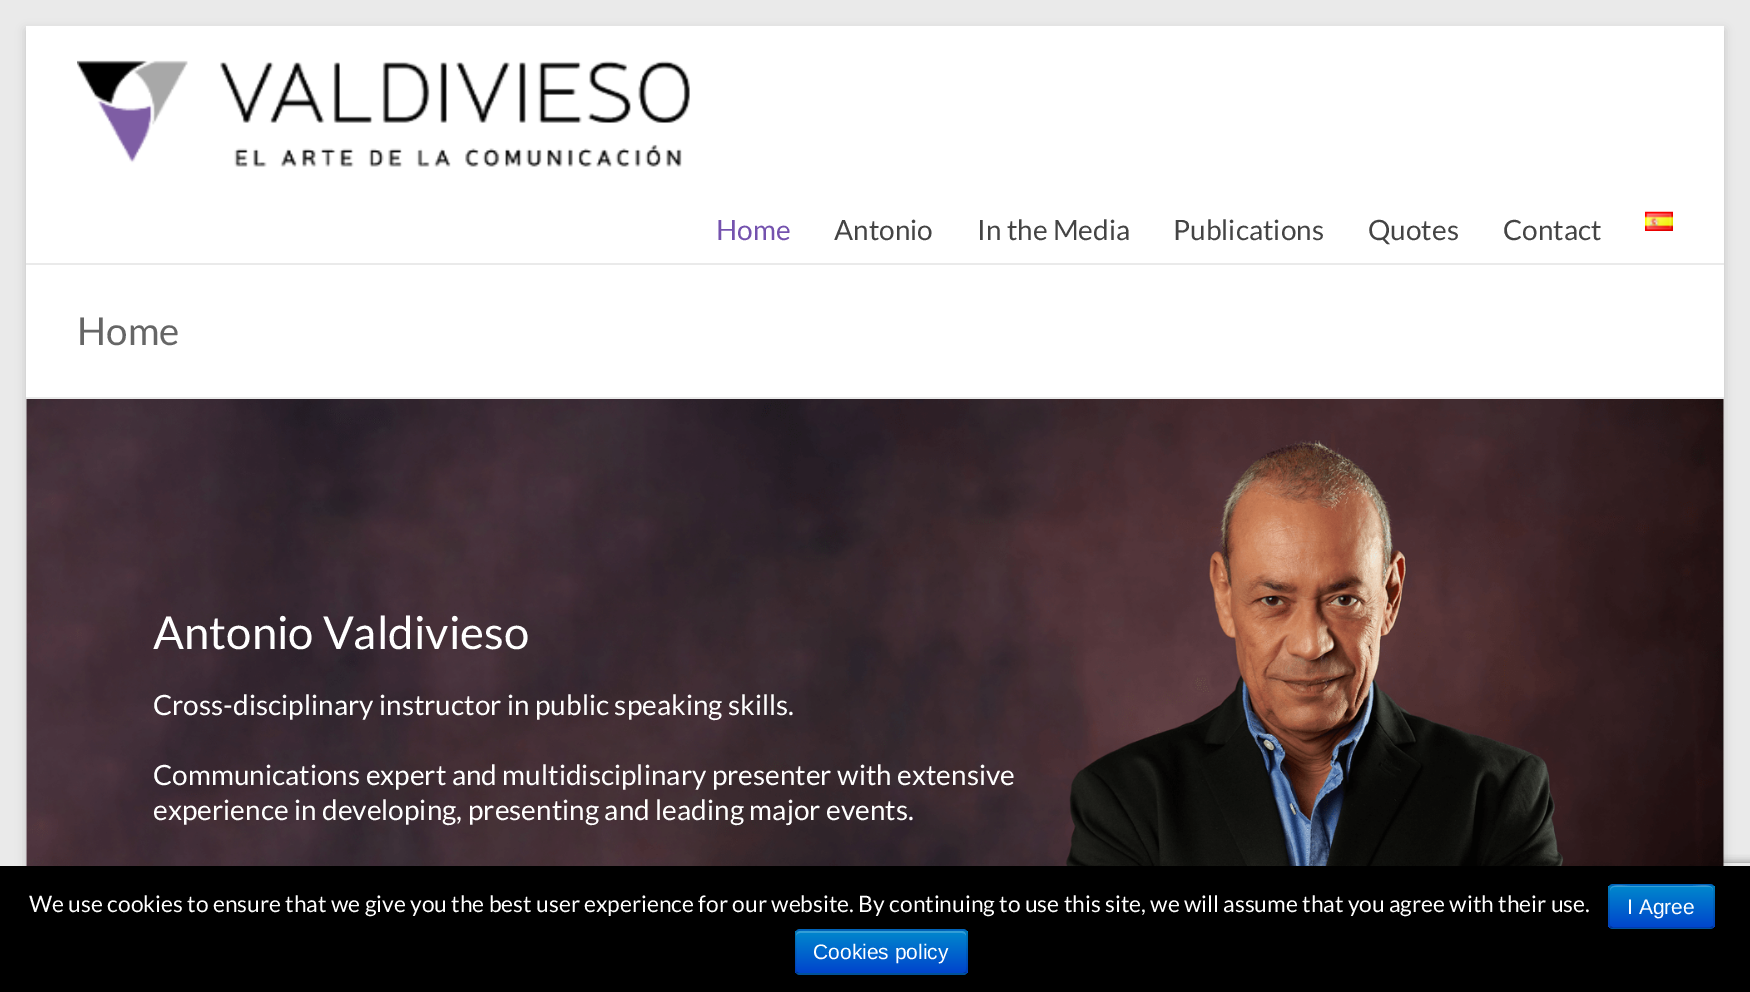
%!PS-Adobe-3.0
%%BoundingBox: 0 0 1750 992
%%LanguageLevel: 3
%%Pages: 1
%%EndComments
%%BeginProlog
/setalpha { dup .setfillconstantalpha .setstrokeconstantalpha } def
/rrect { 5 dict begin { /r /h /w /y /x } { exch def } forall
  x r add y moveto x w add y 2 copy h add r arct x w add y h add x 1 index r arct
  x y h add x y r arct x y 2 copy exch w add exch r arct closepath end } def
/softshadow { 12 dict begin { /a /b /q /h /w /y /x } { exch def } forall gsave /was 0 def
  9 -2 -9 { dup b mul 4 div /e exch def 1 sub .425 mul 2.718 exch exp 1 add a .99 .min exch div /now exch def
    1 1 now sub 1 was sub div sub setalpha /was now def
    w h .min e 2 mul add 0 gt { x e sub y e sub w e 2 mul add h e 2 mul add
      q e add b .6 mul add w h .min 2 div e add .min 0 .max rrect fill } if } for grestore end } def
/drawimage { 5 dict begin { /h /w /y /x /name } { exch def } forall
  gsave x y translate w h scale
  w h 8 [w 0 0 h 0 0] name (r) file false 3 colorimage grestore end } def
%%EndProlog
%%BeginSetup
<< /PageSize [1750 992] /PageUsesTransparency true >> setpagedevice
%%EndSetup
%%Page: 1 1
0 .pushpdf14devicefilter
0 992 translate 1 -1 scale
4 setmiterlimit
0.918 setgray
0 0 1750 992 rectfill
0.392 setgray
26 30 1698 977 0 5 0.3 softshadow
1 setgray
26 26 1698 840 rectfill
0.918 setgray
26 263 1698 2 rectfill
(images/1.raw) 77 60 613 107 drawimage
(images/2.raw) 1645 211 28 20 drawimage
26 397 1698 2 rectfill
gsave
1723 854 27 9 rectclip
0.502 setgray
1628 863 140 105 4 4.5 1 softshadow
grestore
(images/3.raw) 26 399 1698 467 drawimage
0 setgray
0 866 1750 126 rectfill
0 0.427 0.8 setrgbcolor
1608 884 107 45 5 rrect fill
gsave
1608 884 107 45 5 rrect clip newpath
gsave newpath 1608 886 moveto 1715 886 lineto 1715 928 lineto 1608 928 lineto closepath clip newpath
<< /ShadingType 2 /ColorSpace /DeviceRGB /Coords [1662 886 1662 928] /Extend [true true] /Function << /FunctionType 2 /Domain [0 1] /C0 [0 0.533 0.8] /C1 [0 0.267 0.8] /N 1 >> >> shfill grestore
grestore
0.2 setalpha
1 setgray
newpath 1614 887 moveto 1710 887 lineto 1712 887 1713 889 1713 891 curveto 1713 882 1697 886 1693 886 curveto 1630 886 lineto 1626 886 1610 882 1610 891 curveto 1610 889 1612 887 1614 887 curveto closepath fill
0.25 setalpha
0 setgray
1.8 setlinewidth
newpath 1713 927 moveto 1710 928.5 lineto 1613 928.5 lineto 1610.5 927 lineto stroke
0.1 setalpha
newpath 1610.5 927 moveto 1608 925 1609 920.5 1609 918 curveto 1609 906.5 lineto 1609 881.5 1604.5 884.5 1629.5 884.5 curveto 1693.5 884.5 lineto 1718.5 884.5 1714 881.5 1714 906.5 curveto 1714 918 lineto 1714 920.5 1715 925 1713 927 curveto stroke
1 setalpha
0 0.427 0.8 setrgbcolor
795 929 173 46 5 rrect fill
gsave
795 929 173 46 5 rrect clip newpath
gsave newpath 795 931 moveto 968 931 lineto 968 973 lineto 795 973 lineto closepath clip newpath
<< /ShadingType 2 /ColorSpace /DeviceRGB /Coords [881 931 881 973] /Extend [true true] /Function << /FunctionType 2 /Domain [0 1] /C0 [0 0.533 0.8] /C1 [0 0.267 0.8] /N 1 >> >> shfill grestore
grestore
0.2 setalpha
1 setgray
newpath 800 933 moveto 962 933 lineto 964 933 966 934 966 936 curveto 966 935 lineto 966 933 964 931 962 931 curveto 800 931 lineto 798 931 796 933 796 935 curveto 796 936 lineto 796 934 798 933 800 933 curveto closepath fill
0.25 setalpha
0 setgray
newpath 965.5 972.5 moveto 965 973.5 963.5 974 962.5 974 curveto 800 974 lineto 798.5 974 797.5 973.5 796.5 972.5 curveto stroke
0.1 setalpha
newpath 796.5 972.5 moveto 794 970 795.5 961 795.5 958 curveto 795.5 923.5 789.5 930 827 930 curveto 935.5 930 lineto 973 930 967 923.5 967 958 curveto 967 961 968.5 970 965.5 972.5 curveto stroke
/Lato-Regular [28 0 0 -28 0 0] selectfont
1 setalpha
0.455 0.322 0.682 setrgbcolor
716 240 moveto (Home) show
0.267 setgray
834 240 moveto (Antonio) show
977 240 moveto (In the Media) show
1173 240 moveto (Publications) show
1368 240 moveto (Quotes) show
1503 240 moveto (Contact) show
/Lato-Regular [38.5 0 0 -38.5 0 0] selectfont
0.4 setgray
77 345 moveto (Home) show
/Lato-Regular [45.5 0 0 -45.5 0 0] selectfont
1 setgray
153 649 moveto (Antonio Valdivieso) show
/Lato-Regular [28 0 0 -28 0 0] selectfont
153 715 moveto (Cross-disciplinary instructor in public speaking skills.) show
153 785 moveto (Communications expert and multidisciplinary presenter with extensive) show
153 820 moveto (experience in developing, presenting and leading major events.) show
/Lato-Regular [22.75 0 0 -22.75 0 0] selectfont
29 912 moveto (We use cookies to ensure that we give you the best user experience for our website. By continuing to use this site, we will assume that you agree with their use.) show
/LiberationSans-Regular [21 0 0 -21 0 0] selectfont
1627 914 moveto (I Agree) show
813 959 moveto (Cookies policy) show
.poppdf14devicefilter showpage
%%EOF
